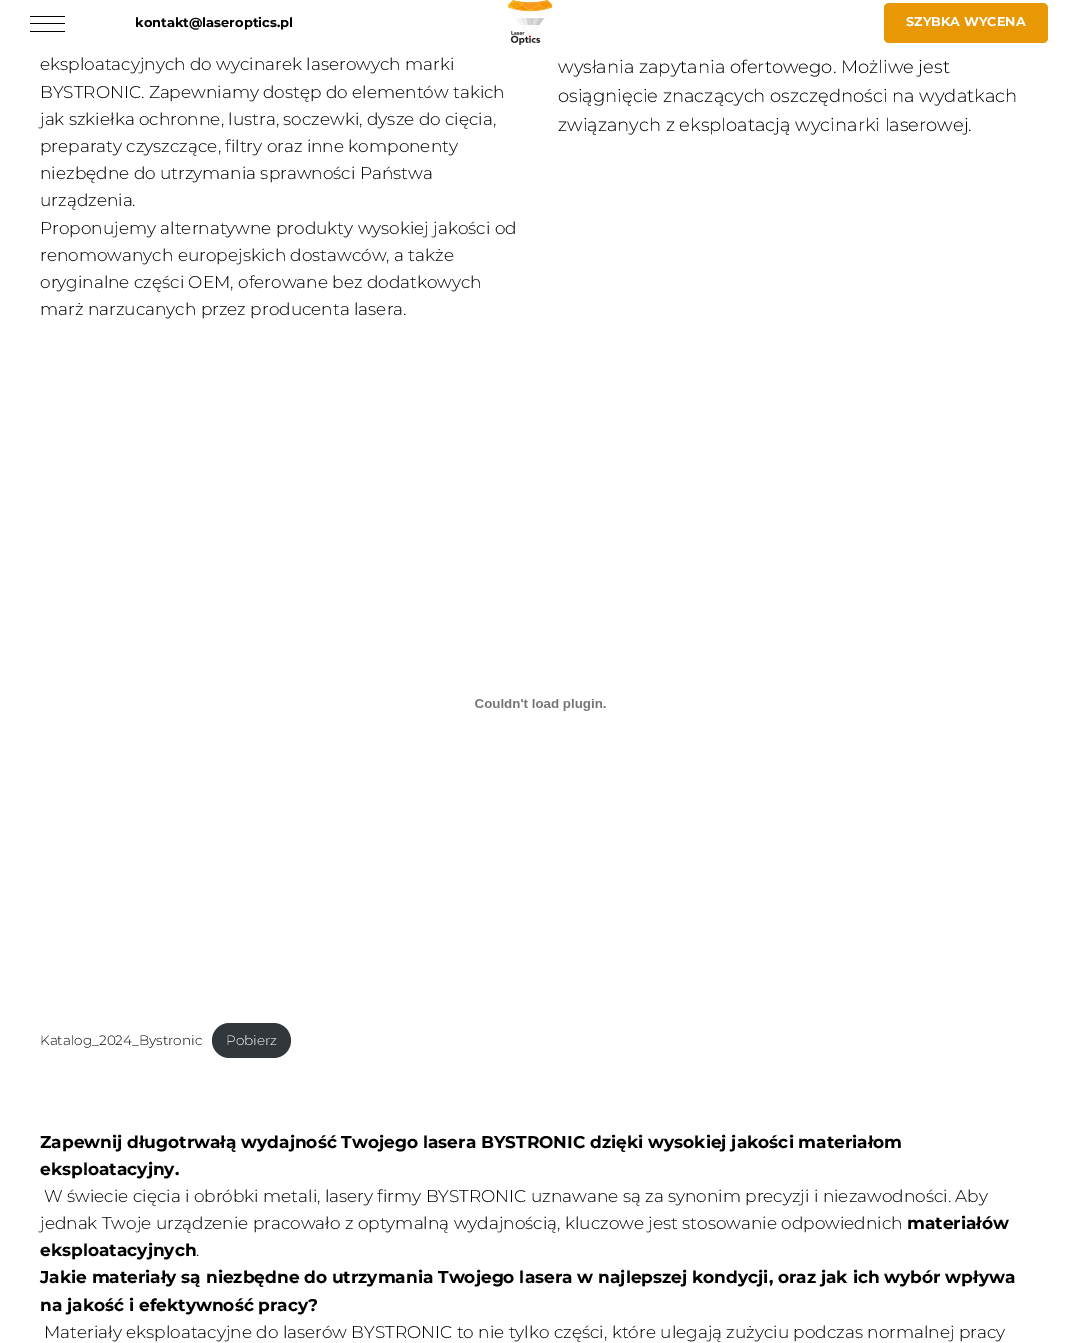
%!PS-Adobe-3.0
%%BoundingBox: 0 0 1081 1343
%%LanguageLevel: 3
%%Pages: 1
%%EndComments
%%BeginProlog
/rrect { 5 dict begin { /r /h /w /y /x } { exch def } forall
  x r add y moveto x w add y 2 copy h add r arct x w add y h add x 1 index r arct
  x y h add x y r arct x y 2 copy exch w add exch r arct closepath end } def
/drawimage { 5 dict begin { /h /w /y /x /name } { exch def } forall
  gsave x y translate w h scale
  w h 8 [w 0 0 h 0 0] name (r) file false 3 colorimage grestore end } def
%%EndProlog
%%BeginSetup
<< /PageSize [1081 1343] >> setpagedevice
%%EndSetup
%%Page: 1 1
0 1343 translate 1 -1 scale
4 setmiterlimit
1 setgray
0 0 1081 1343 rectfill
0 setgray
30 16 35 1 rectfill
30 23 35 1 rectfill
30 31 35 1 rectfill
(images/1.raw) 508 0 44 45 drawimage
0.91 0.596 0.02 setrgbcolor
884 3 164 40 5 rrect fill
(images/2.raw) 475 699 131 12 drawimage
0.196 0.216 0.235 setrgbcolor
212 1023 79 35 17.5 rrect fill
/Montserrat-Bold [13 0 0 -13 0 0] selectfont
0 setgray
135 27 moveto (kontakt@laseroptics.pl) show
/Montserrat-Bold [12.75 0 0 -12.75 0 0] selectfont
1 setgray
906 26 moveto (SZYBKA WYCENA) show
/Montserrat-Light [17 0 0 -17 0 0] selectfont
0 setgray
40 70 moveto (eksploatacyjnych do wycinarek laserowych marki) show
40 98 moveto (BYSTRONIC. Zapewniamy dostęp do elementów takich) show
40 125 moveto (jak szkiełka ochronne, lustra, soczewki, dysze do cięcia,) show
40 152 moveto (preparaty czyszczące, filtry oraz inne komponenty) show
40 179 moveto (niezbędne do utrzymania sprawności Państwa) show
40 206 moveto (urządzenia.) show
40 234 moveto (Proponujemy alternatywne produkty wysokiej jakości od) show
40 261 moveto (renomowanych europejskich dostawców, a także) show
40 288 moveto (oryginalne części OEM, oferowane bez dodatkowych) show
40 315 moveto (marż narzucanych przez producenta lasera.) show
/Montserrat-Light [18 0 0 -18 0 0] selectfont
558 73 moveto (wysłania zapytania ofertowego. Możliwe jest) show
558 102 moveto (osiągnięcie znaczących oszczędności na wydatkach) show
558 131 moveto (związanych z eksploatacją wycinarki laserowej.) show
/Montserrat-Light [13.6 0 0 -13.6 0 0] selectfont
40 1045 moveto (Katalog_2024_Bystronic) show
1 setgray
226 1045 moveto (Pobierz) show
/Montserrat-Bold [17 0 0 -17 0 0] selectfont
0 setgray
40 1148 moveto (Zapewnij długotrwałą wydajność Twojego lasera BYSTRONIC dzięki wysokiej jakości materiałom) show
40 1175 moveto (eksploatacyjny.) show
/Montserrat-Light [17 0 0 -17 0 0] selectfont
44 1202 moveto (W świecie cięcia i obróbki metali, lasery firmy BYSTRONIC uznawane są za synonim precyzji i niezawodności. Aby) show
40 1229 moveto (jednak Twoje urządzenie pracowało z optymalną wydajnością, kluczowe jest stosowanie odpowiednich) show
/Montserrat-Bold [17 0 0 -17 0 0] selectfont
907 1229 moveto (materiałów) show
40 1256 moveto (eksploatacyjnych) show
/Montserrat-Light [17 0 0 -17 0 0] selectfont
196 1256 moveto (.) show
/Montserrat-Bold [17 0 0 -17 0 0] selectfont
40 1283 moveto (Jakie materiały są niezbędne do utrzymania Twojego lasera w najlepszej kondycji, oraz jak ich wybór wpływa) show
40 1311 moveto (na jakość i efektywność pracy?) show
/Montserrat-Light [17 0 0 -17 0 0] selectfont
44 1338 moveto (Materiały eksploatacyjne do laserów BYSTRONIC to nie tylko części, które ulegają zużyciu podczas normalnej pracy) show
showpage
%%EOF
